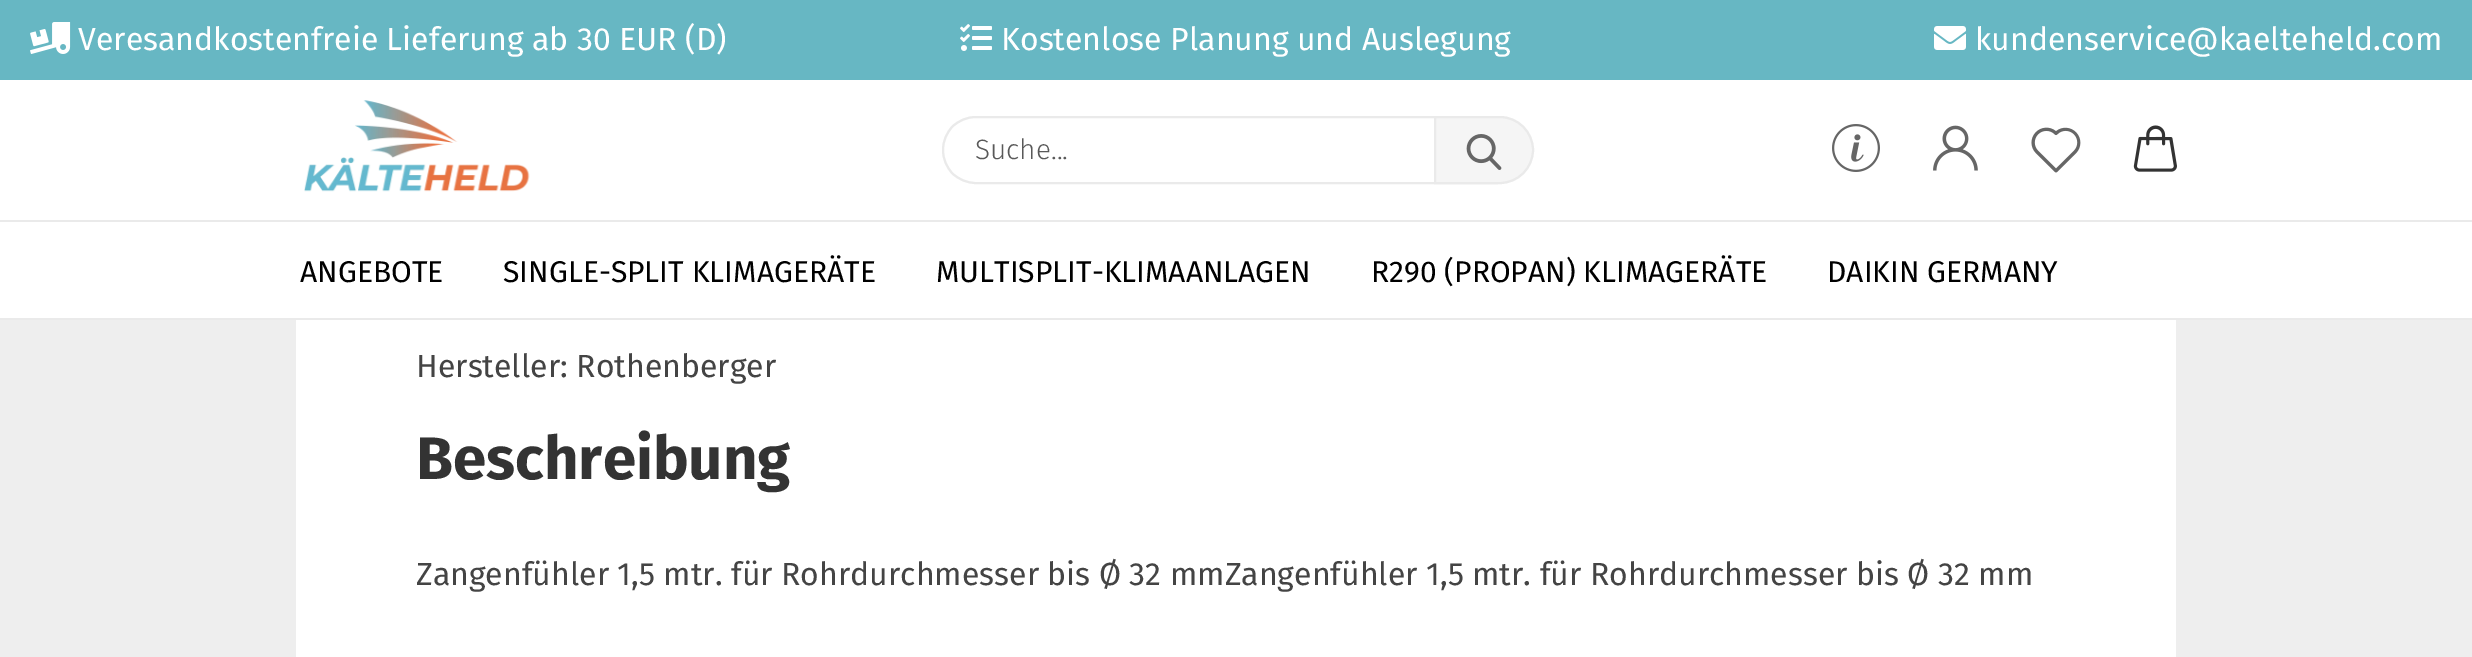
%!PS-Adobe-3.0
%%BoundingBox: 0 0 2472 657
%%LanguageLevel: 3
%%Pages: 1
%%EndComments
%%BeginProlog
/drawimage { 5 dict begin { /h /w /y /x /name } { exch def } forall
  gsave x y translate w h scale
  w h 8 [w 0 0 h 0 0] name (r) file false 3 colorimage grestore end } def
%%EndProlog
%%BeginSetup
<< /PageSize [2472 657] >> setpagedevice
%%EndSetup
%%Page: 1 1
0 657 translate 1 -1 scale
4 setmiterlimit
0.933 setgray
0 0 2472 657 rectfill
1 setgray
0 80 2472 238 rectfill
0.918 setgray
0 318 2472 2 rectfill
0.404 0.718 0.765 setrgbcolor
0 0 2472 80 rectfill
(images/1.raw) 30 22 41 32 drawimage
(images/2.raw) 960 24 32 27 drawimage
(images/3.raw) 1934 26 32 24 drawimage
(images/4.raw) 304 100 226 92 drawimage
0.918 setgray
2 setlinewidth
newpath 1519.5 173.5 moveto 1513 179.5 1505 183 1496 183 curveto 976 183 lineto 967 183 959 179.5 952.5 173.5 curveto 946.5 167 943 159 943 150 curveto 943 141 946.5 133 952.5 126.5 curveto 959 120.5 967 117 976 117 curveto 1496 117 lineto 1505 117 1513 120.5 1519.5 126.5 curveto stroke
0.961 setgray
newpath 1435 117 moveto 1500 117 lineto 1518 117 1533 132 1533 150 curveto 1533 168 1518 183 1500 183 curveto 1435 183 lineto closepath gsave fill grestore
0.918 setgray
stroke
(images/5.raw) 1466 134 36 36 drawimage
(images/6.raw) 1832 124 48 48 drawimage
(images/7.raw) 1933 125 45 46 drawimage
(images/8.raw) 2031 127 50 46 drawimage
(images/9.raw) 2133 125 44 47 drawimage
0 220 2472 2 rectfill
1 setgray
296 320 1880 337 rectfill
/FiraSans-Regular [32 0 0 -32 0 0] selectfont
78 50 moveto (Veresandkostenfreie Lieferung ab 30 EUR \(D\)) show
1001 50 moveto (Kostenlose Planung und Auslegung) show
1975 50 moveto (kundenservice@kaelteheld.com) show
/FiraSans-Light [28 0 0 -28 0 0] selectfont
0.349 setgray
975 159 moveto (Suche...) show
/FiraSans-Regular [30 0 0 -30 0 0] selectfont
0 setgray
300 282 moveto (ANGEBOTE) show
503 282 moveto (SINGLE-SPLIT KLIMAGERÄTE) show
936 282 moveto (MULTISPLIT-KLIMAANLAGEN) show
1371 282 moveto (R290 \(PROPAN\) KLIMAGERÄTE) show
1827 282 moveto (DAIKIN GERMANY) show
/FiraSans-Regular [32 0 0 -32 0 0] selectfont
0.267 setgray
416 377 moveto (Hersteller: Rothenberger) show
/FiraSans-Bold [60 0 0 -60 0 0] selectfont
0.2 setgray
416 479 moveto (Beschreibung) show
/FiraSans-Regular [32 0 0 -32 0 0] selectfont
0.267 setgray
416 585 moveto (Zangenfühler 1,5 mtr. für Rohrdurchmesser bis Ø 32 mmZangenfühler 1,5 mtr. für Rohrdurchmesser bis Ø 32 mm) show
showpage
%%EOF
